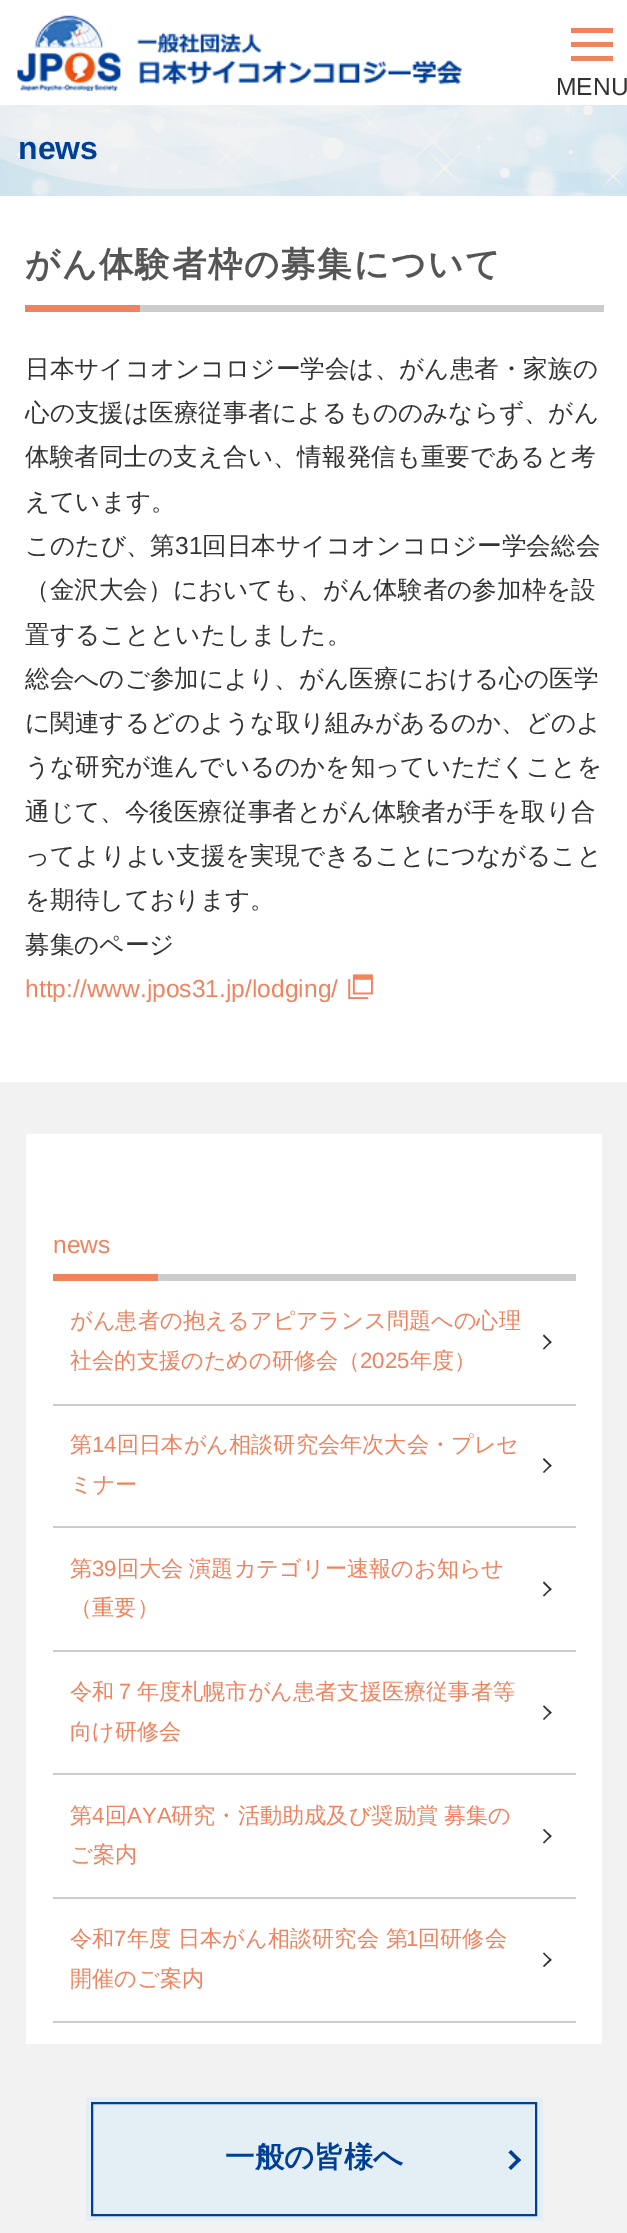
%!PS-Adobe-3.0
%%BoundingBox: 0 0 627 2233
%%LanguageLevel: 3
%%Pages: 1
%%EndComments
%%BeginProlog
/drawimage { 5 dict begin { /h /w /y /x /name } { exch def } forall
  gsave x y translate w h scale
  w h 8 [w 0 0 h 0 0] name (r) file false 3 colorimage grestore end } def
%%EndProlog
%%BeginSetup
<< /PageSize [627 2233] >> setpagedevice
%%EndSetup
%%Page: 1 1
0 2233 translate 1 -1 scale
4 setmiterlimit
1 setgray
0 0 627 2233 rectfill
(images/1.raw) 17 15 445 76 drawimage
0.941 0.51 0.369 setrgbcolor
571 42 42 5 rectfill
571 28 42 5 rectfill
571 56 42 5 rectfill
(images/2.raw) 0 105 627 91 drawimage
0.8 setgray
140 305 464 7 rectfill
0.941 0.51 0.369 setrgbcolor
25 305 115 7 rectfill
(images/3.raw) 348 974 25 26 drawimage
0.949 setgray
0 1082 627 1151 rectfill
1 setgray
26 1134 576 910 rectfill
0.8 setgray
158 1274 418 7 rectfill
0.941 0.51 0.369 setrgbcolor
53 1274 105 7 rectfill
0.8 setgray
53 1404 523 2 rectfill
0.2 setgray
newpath 544 1334.5 moveto 551.5 1342 lineto 550.5 1343.5 lineto 543 1336 lineto closepath fill
newpath 550.5 1341 moveto 551.5 1342 lineto 544 1349.5 lineto 543 1348.5 lineto closepath fill
0.8 setgray
53 1526 523 2 rectfill
0.2 setgray
newpath 544 1458 moveto 551.5 1465.5 lineto 550.5 1467 lineto 543 1459.5 lineto closepath fill
newpath 550.5 1464.5 moveto 551.5 1465.5 lineto 544 1473 lineto 543 1472 lineto closepath fill
0.8 setgray
53 1650 523 2 rectfill
0.2 setgray
newpath 544 1581.5 moveto 551.5 1589 lineto 550.5 1590.5 lineto 543 1583 lineto closepath fill
newpath 550.5 1588 moveto 551.5 1589 lineto 544 1596.5 lineto 543 1595.5 lineto closepath fill
0.8 setgray
53 1773 523 2 rectfill
0.2 setgray
newpath 544 1705.5 moveto 551.5 1712.5 lineto 550.5 1714 lineto 543 1706.5 lineto closepath fill
newpath 550.5 1711.5 moveto 551.5 1712.5 lineto 544 1720 lineto 543 1719 lineto closepath fill
0.8 setgray
53 1897 523 2 rectfill
0.2 setgray
newpath 544 1829 moveto 551.5 1836 lineto 550.5 1837.5 lineto 543 1830 lineto closepath fill
newpath 550.5 1835 moveto 551.5 1836 lineto 544 1843.5 lineto 543 1842.5 lineto closepath fill
0.8 setgray
53 2021 523 2 rectfill
0.2 setgray
newpath 544 1952.5 moveto 551.5 1960 lineto 550.5 1961 lineto 543 1953.5 lineto closepath fill
newpath 550.5 1958.5 moveto 551.5 1960 lineto 544 1967 lineto 543 1966 lineto closepath fill
0.894 0.937 0.961 setrgbcolor
86 2097 457 124 rectfill
0 0.247 0.596 setrgbcolor
2 setlinewidth
92 2103 444 112 rectstroke
newpath 511 2150 moveto 521 2160 lineto 518.5 2162.5 lineto 508.5 2152.5 lineto closepath fill
newpath 518.5 2157.5 moveto 521 2160 lineto 511 2170 lineto 508.5 2167.5 lineto closepath fill
/LiberationSans-Regular [24.6 0 0 -24.6 0 0] selectfont
0.2 setgray
556 95 moveto (MENU) show
/LiberationSans-Bold [32 0 0 -32 0 0] selectfont
0 0.247 0.592 setrgbcolor
18 159 moveto (news) show
/WenQuanYiZenHei-Bold [34.5 0 0 -34.5 0 0] selectfont
0.333 setgray
25 276 moveto 1.75 0 (がん体験者枠の募集について) ashow
/WenQuanYiZenHei-Medium [24.6 0 0 -24.6 0 0] selectfont
0.2 setgray
25 377 moveto (日本サイコオンコロジー学会は、がん患者・家族の) show
25 421 moveto (心の支援は医療従事者によるもののみならず、がん) show
25 465 moveto (体験者同士の支え合い、情報発信も重要であると考) show
25 510 moveto (えています。) show
25 554 moveto (このたび、第) show
/LiberationSans-Regular [24.6 0 0 -24.6 0 0] selectfont
175 554 moveto (31) show
/WenQuanYiZenHei-Medium [24.6 0 0 -24.6 0 0] selectfont
202 554 moveto (回日本サイコオンコロジー学会総会) show
25 598 moveto (（金沢大会）においても、がん体験者の参加枠を設) show
25 643 moveto (置することといたしました。) show
25 687 moveto (総会へのご参加により、がん医療における心の医学) show
25 731 moveto (に関連するどのような取り組みがあるのか、どのよ) show
25 775 moveto (うな研究が進んでいるのかを知っていただくことを) show
25 820 moveto (通じて、今後医療従事者とがん体験者が手を取り合) show
25 864 moveto (ってよりよい支援を実現できることにつながること) show
25 908 moveto (を期待しております。) show
25 953 moveto (募集のページ) show
/LiberationSans-Regular [24.6 0 0 -24.6 0 0] selectfont
0.941 0.51 0.369 setrgbcolor
25 997 moveto (http://www.jpos31.jp/lodging/) show
/LiberationSans-Regular [24.5 0 0 -24.5 0 0] selectfont
53 1253 moveto (news) show
/WenQuanYiZenHei-Medium [22.2 0 0 -22.2 0 0] selectfont
70 1328 moveto (がん患者の抱えるアピアランス問題への心理) show
70 1368 moveto (社会的支援のための研修会（) show
/LiberationSans-Regular [22.2 0 0 -22.2 0 0] selectfont
360 1368 moveto (2025) show
/WenQuanYiZenHei-Medium [22.2 0 0 -22.2 0 0] selectfont
410 1368 moveto (年度）) show
70 1452 moveto (第) show
/LiberationSans-Regular [22.2 0 0 -22.2 0 0] selectfont
92 1452 moveto (14) show
/WenQuanYiZenHei-Medium [22.2 0 0 -22.2 0 0] selectfont
117 1452 moveto (回日本がん相談研究会年次大会・プレセ) show
70 1492 moveto (ミナー) show
70 1576 moveto (第) show
/LiberationSans-Regular [22.2 0 0 -22.2 0 0] selectfont
92 1576 moveto (39) show
/WenQuanYiZenHei-Medium [22.2 0 0 -22.2 0 0] selectfont
117 1576 moveto -1 0 32 (回大会 演題カテゴリー速報のお知らせ) widthshow
70 1615 moveto (（重要）) show
70 1699 moveto (令和７年度札幌市がん患者支援医療従事者等) show
70 1739 moveto (向け研修会) show
70 1823 moveto (第) show
/LiberationSans-Regular [22.2 0 0 -22.2 0 0] selectfont
92 1823 moveto (4) show
/WenQuanYiZenHei-Medium [22.2 0 0 -22.2 0 0] selectfont
105 1823 moveto (回) show
/LiberationSans-Regular [22.2 0 0 -22.2 0 0] selectfont
127 1823 moveto (AYA) show
/WenQuanYiZenHei-Medium [22.2 0 0 -22.2 0 0] selectfont
171 1823 moveto -1 0 32 (研究・活動助成及び奨励賞 募集の) widthshow
70 1862 moveto (ご案内) show
70 1946 moveto (令和) show
/LiberationSans-Regular [22.2 0 0 -22.2 0 0] selectfont
114 1946 moveto (7) show
/WenQuanYiZenHei-Medium [22.2 0 0 -22.2 0 0] selectfont
127 1946 moveto (年度 日本がん相談研究会 第) show
/LiberationSans-Regular [22.2 0 0 -22.2 0 0] selectfont
406 1946 moveto (1) show
/WenQuanYiZenHei-Medium [22.2 0 0 -22.2 0 0] selectfont
418 1946 moveto (回研修会) show
70 1986 moveto (開催のご案内) show
/WenQuanYiZenHei-Bold [29.5 0 0 -29.5 0 0] selectfont
0 0.247 0.592 setrgbcolor
225 2167 moveto (一般の皆様へ) show
showpage
%%EOF
